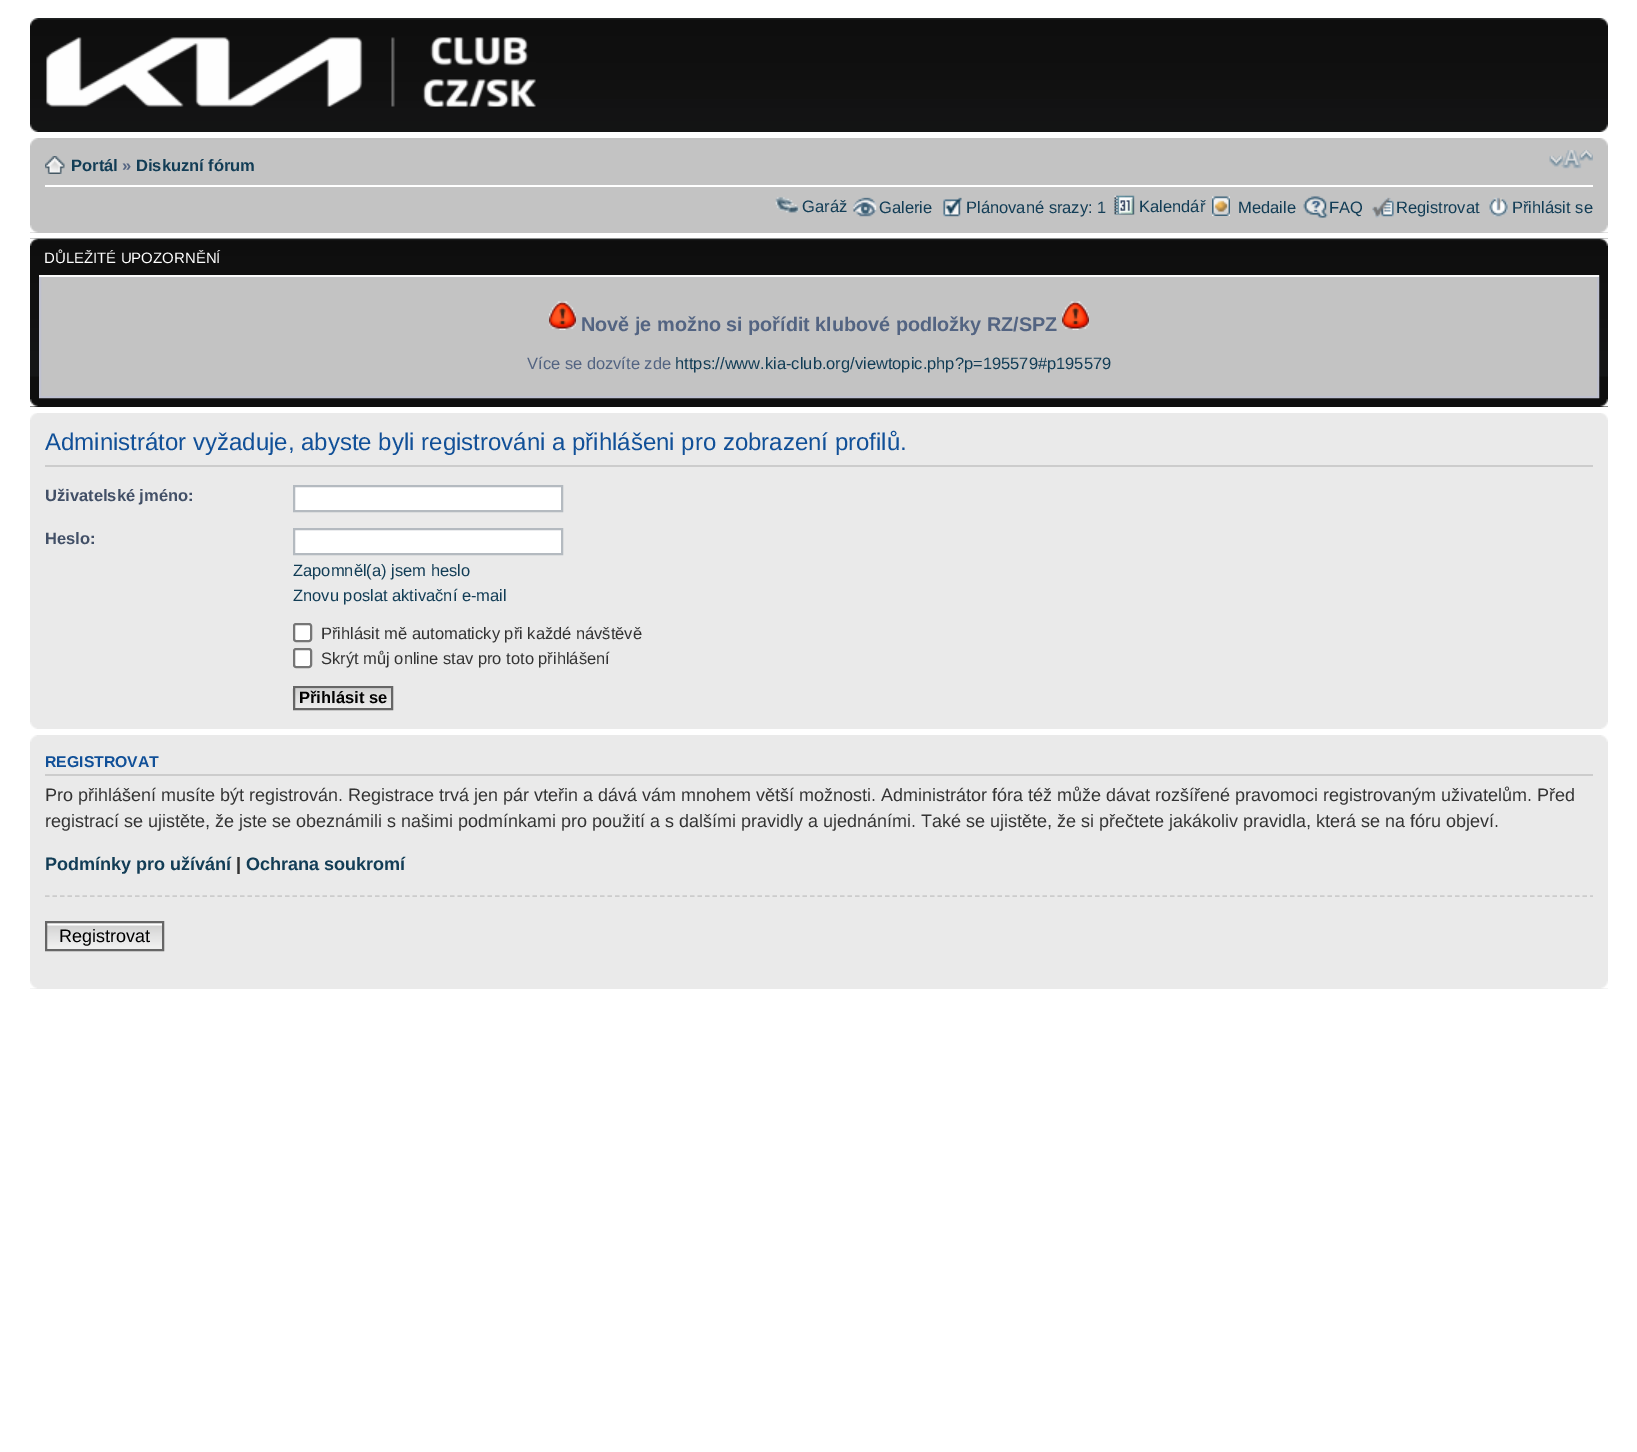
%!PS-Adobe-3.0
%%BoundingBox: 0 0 1637 1452
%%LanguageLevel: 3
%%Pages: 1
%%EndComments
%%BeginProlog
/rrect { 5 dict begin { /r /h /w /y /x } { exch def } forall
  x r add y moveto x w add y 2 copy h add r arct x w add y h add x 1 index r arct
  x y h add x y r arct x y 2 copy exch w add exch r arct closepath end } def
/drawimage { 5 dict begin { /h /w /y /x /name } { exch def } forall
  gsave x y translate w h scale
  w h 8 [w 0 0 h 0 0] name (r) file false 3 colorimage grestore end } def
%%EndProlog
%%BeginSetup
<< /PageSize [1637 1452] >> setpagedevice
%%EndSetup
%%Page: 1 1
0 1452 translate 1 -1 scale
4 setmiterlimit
1 setgray
0 0 1637 1452 rectfill
(images/1.raw) 30 18 1578 114 drawimage
(images/2.raw) 30 18 9 8 drawimage
(images/3.raw) 1599 18 9 8 drawimage
(images/4.raw) 46 37 490 70 drawimage
(images/5.raw) 30 124 8 8 drawimage
(images/6.raw) 1600 124 8 8 drawimage
0.765 setgray
30 138 1578 95 rectfill
(images/7.raw) 30 138 8 8 drawimage
(images/8.raw) 1600 138 8 8 drawimage
1 setgray
45 185 1548 2 rectfill
(images/9.raw) 45 156 20 18 drawimage
(images/10.raw) 1549 150 44 19 drawimage
(images/11.raw) 775 197 25 16 drawimage
(images/12.raw) 853 197 24 20 drawimage
(images/13.raw) 943 197 19 20 drawimage
(images/14.raw) 1114 195 21 20 drawimage
(images/15.raw) 1212 196 18 20 drawimage
(images/16.raw) 1303 196 25 22 drawimage
(images/17.raw) 1372 197 22 21 drawimage
(images/18.raw) 1489 197 19 20 drawimage
(images/19.raw) 30 225 8 8 drawimage
(images/20.raw) 1600 225 8 8 drawimage
0.055 setgray
30 376 1578 31 rectfill
(images/21.raw) 30 238 1578 139 drawimage
(images/22.raw) 30 238 8 8 drawimage
(images/23.raw) 1600 238 8 8 drawimage
0.765 setgray
newpath 40 276 moveto 1598 276 lineto 1598 397 lineto 40 397 lineto closepath gsave fill grestore
0.749 0.757 0.812 setrgbcolor
2 setlinewidth
stroke
0.98 setgray
39 275 1560 2 rectfill
(images/24.raw) 549 301 27 29 drawimage
(images/25.raw) 1062 301 27 29 drawimage
(images/26.raw) 30 399 8 8 drawimage
(images/27.raw) 1600 399 8 8 drawimage
0.918 setgray
30 413 1578 316 rectfill
(images/28.raw) 30 413 7 7 drawimage
(images/29.raw) 1601 413 7 7 drawimage
0.8 setgray
45 465 1548 2 rectfill
1 setgray
newpath 294 486 moveto 562 486 lineto 562 511 lineto 294 511 lineto closepath gsave fill grestore
0.706 0.729 0.753 setrgbcolor
stroke
1 setgray
newpath 294 529 moveto 562 529 lineto 562 554 lineto 294 554 lineto closepath gsave fill grestore
0.706 0.729 0.753 setrgbcolor
stroke
1 setgray
294 624 17 17 2 rrect gsave fill grestore
0.463 setgray
stroke
1 setgray
294 649 17 18 2 rrect gsave fill grestore
0.463 setgray
stroke
(images/30.raw) 292 687 99 23 drawimage
0.4 setgray
294 687 98 22 rectstroke
(images/31.raw) 30 722 7 7 drawimage
(images/32.raw) 1601 722 7 7 drawimage
0.918 setgray
30 735 1578 254 rectfill
(images/33.raw) 30 735 7 7 drawimage
(images/34.raw) 1601 735 7 7 drawimage
0.8 setgray
45 774 1548 2 rectfill
1.5 setlinewidth
[4.5 3] 0 setdash
newpath 45 896 moveto 1593 896 lineto stroke
(images/35.raw) 47 924 115 25 drawimage
0.98 setgray
47 923 115 1 rectfill
0.4 setgray
2 setlinewidth
[] 0 setdash
46 922 117 28 rectstroke
(images/36.raw) 30 981 7 8 drawimage
(images/37.raw) 1601 981 7 8 drawimage
/LiberationSans-Bold [16.5 0 0 -16.5 0 0] selectfont
0.071 0.239 0.337 setrgbcolor
71 171 moveto (Portál) show
0.325 0.392 0.51 setrgbcolor
122 171 moveto (») show
0.071 0.239 0.337 setrgbcolor
136 171 moveto (Diskuzní fórum) show
/LiberationSans-Regular [16.5 0 0 -16.5 0 0] selectfont
802 212 moveto (Garáž) show
879 213 moveto (Galerie) show
966 213 moveto (Plánované srazy: 1) show
1139 212 moveto (Kalendář) show
1238 213 moveto (Medaile) show
1329 213 moveto (FAQ) show
1396 213 moveto (Registrovat) show
1512 213 moveto (Přihlásit se) show
/LiberationSans-Regular [15 0 0 -15 0 0] selectfont
1 setgray
44 263 moveto (DŮLEŽITÉ UPOZORNĚNÍ) show
/LiberationSans-Bold [19.8 0 0 -19.8 0 0] selectfont
0.325 0.392 0.51 setrgbcolor
581 331 moveto (Nově je možno si pořídit klubové podložky RZ/SPZ) show
/LiberationSans-Regular [16.5 0 0 -16.5 0 0] selectfont
527 369 moveto (Více se dozvíte zde) show
0.071 0.239 0.337 setrgbcolor
675 369 moveto (https://www.kia-club.org/viewtopic.php?p=195579#p195579) show
/LiberationSans-Regular [24 0 0 -24 0 0] selectfont
0.067 0.314 0.596 setrgbcolor
45 450 moveto (Administrátor vyžaduje, abyste byli registrováni a přihlášeni pro zobrazení profilů.) show
/LiberationSans-Bold [16.5 0 0 -16.5 0 0] selectfont
0.259 0.314 0.404 setrgbcolor
45 501 moveto (Uživatelské jméno:) show
45 544 moveto (Heslo:) show
/LiberationSans-Regular [16.5 0 0 -16.5 0 0] selectfont
0.071 0.239 0.337 setrgbcolor
293 576 moveto (Zapomněl\(a\) jsem heslo) show
293 601 moveto (Znovu poslat aktivační e-mail) show
0.2 setgray
321 639 moveto (Přihlásit mě automaticky při každé návštěvě) show
321 664 moveto (Skrýt můj online stav pro toto přihlášení) show
/LiberationSans-Bold [16.5 0 0 -16.5 0 0] selectfont
0 setgray
299 703 moveto (Přihlásit se) show
/LiberationSans-Bold [15.75 0 0 -15.75 0 0] selectfont
0.067 0.314 0.596 setrgbcolor
45 767 moveto (REGISTROVAT) show
/LiberationSans-Regular [18 0 0 -18 0 0] selectfont
0.2 setgray
45 801 moveto (Pro přihlášení musíte být registrován. Registrace trvá jen pár vteřin a dává vám mnohem větší možnosti. Administrátor fóra též může dávat rozšířené pravomoci registrovaným uživatelům. Před) show
45 827 moveto (registrací se ujistěte, že jste se obeznámili s našimi podmínkami pro použití a s dalšími pravidly a ujednáními. Také se ujistěte, že si přečtete jakákoliv pravidla, která se na fóru objeví.) show
/LiberationSans-Bold [18 0 0 -18 0 0] selectfont
0.071 0.239 0.337 setrgbcolor
45 870 moveto (Podmínky pro užívání) show
0.2 setgray
236 870 moveto (|) show
0.071 0.239 0.337 setrgbcolor
246 870 moveto (Ochrana soukromí) show
/LiberationSans-Regular [18 0 0 -18 0 0] selectfont
0 setgray
59 942 moveto (Registrovat) show
showpage
%%EOF
